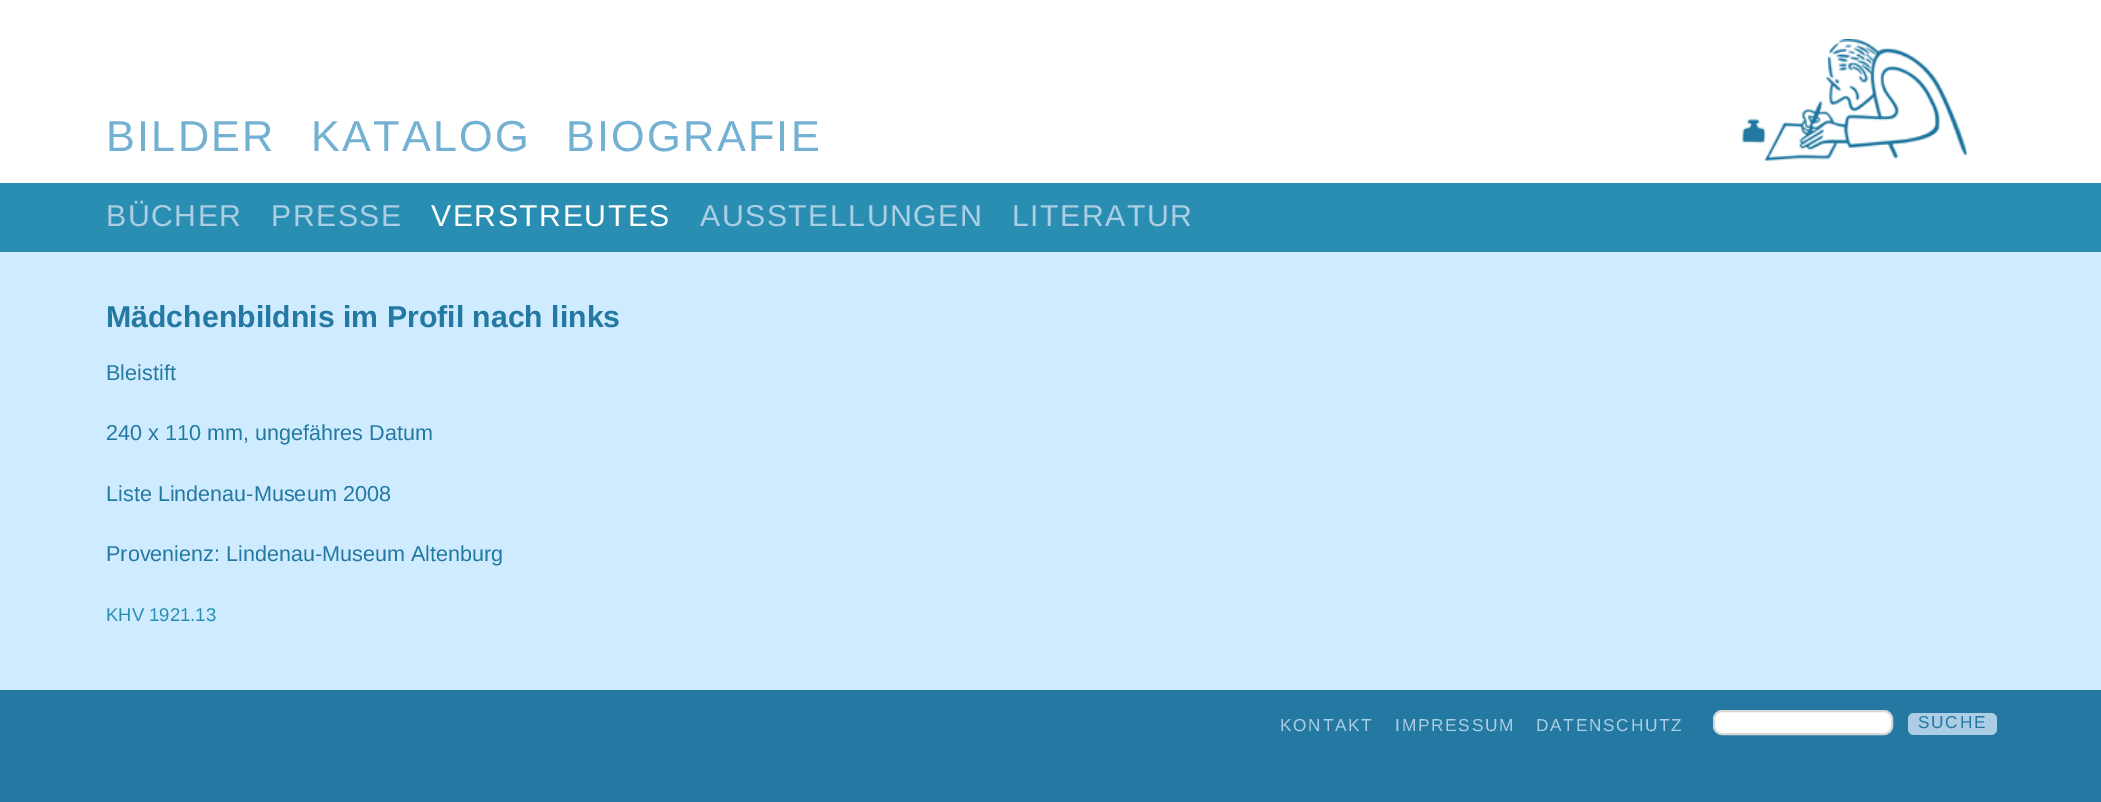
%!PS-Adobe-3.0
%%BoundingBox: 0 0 2101 802
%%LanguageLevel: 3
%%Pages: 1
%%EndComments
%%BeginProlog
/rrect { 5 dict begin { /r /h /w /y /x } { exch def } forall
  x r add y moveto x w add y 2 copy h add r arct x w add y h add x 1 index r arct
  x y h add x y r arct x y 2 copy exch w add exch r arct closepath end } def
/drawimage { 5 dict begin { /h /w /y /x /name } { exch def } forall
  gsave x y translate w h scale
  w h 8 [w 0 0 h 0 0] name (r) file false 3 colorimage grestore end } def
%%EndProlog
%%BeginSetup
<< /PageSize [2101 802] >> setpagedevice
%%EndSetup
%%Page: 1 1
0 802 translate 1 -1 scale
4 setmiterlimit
0.137 0.475 0.631 setrgbcolor
0 0 2101 802 rectfill
1 setgray
0 0 2101 183 rectfill
(images/1.raw) 1742 39 225 122 drawimage
0.165 0.557 0.698 setrgbcolor
0 183 2101 69 rectfill
0.808 0.922 1 setrgbcolor
0 252 2101 438 rectfill
1 setgray
1714 711 178 23 8 rrect gsave fill grestore
0.843 setgray
2 setlinewidth
stroke
0.675 0.808 0.898 setrgbcolor
1908 713 89 22 6 rrect fill
/LiberationSans-Regular [43.25 0 0 -43.25 0 0] selectfont
0.451 0.694 0.827 setrgbcolor
106 151 moveto 2.25 0 (BILDER) ashow
311 151 moveto 2.25 0 (KATALOG) ashow
566 151 moveto 2.25 0 (BIOGRAFIE) ashow
/LiberationSans-Regular [30.25 0 0 -30.25 0 0] selectfont
0.675 0.808 0.898 setrgbcolor
106 226 moveto 1.5 0 (BÜCHER) ashow
271 226 moveto 1.5 0 (PRESSE) ashow
1 setgray
431 226 moveto 1.5 0 (VERSTREUTES) ashow
0.675 0.808 0.898 setrgbcolor
700 226 moveto 1.5 0 (AUSSTELLUNGEN) ashow
1012 226 moveto 1.5 0 (LITERATUR) ashow
/LiberationSans-Bold [30.25 0 0 -30.25 0 0] selectfont
0.137 0.475 0.631 setrgbcolor
106 327 moveto (Mädchenbildnis im Profil nach links) show
/LiberationSans-Regular [21.6 0 0 -21.6 0 0] selectfont
106 380 moveto (Bleistift) show
106 440 moveto (240 x 110 mm, ungefähres Datum) show
106 501 moveto (Liste Lindenau-Museum 2008) show
106 561 moveto (Provenienz: Lindenau-Museum Altenburg) show
/LiberationSans-Regular [18.5 0 0 -18.5 0 0] selectfont
0.165 0.557 0.698 setrgbcolor
106 621 moveto (KHV 1921.13) show
/LiberationSans-Regular [17.25 0 0 -17.25 0 0] selectfont
0.675 0.808 0.898 setrgbcolor
1280 731 moveto 1.75 0 (KONTAKT) ashow
1395 731 moveto 1.75 0 (IMPRESSUM) ashow
1536 731 moveto 1.75 0 (DATENSCHUTZ) ashow
0.137 0.475 0.631 setrgbcolor
1918 728 moveto 1.75 0 (SUCHE) ashow
showpage
%%EOF
